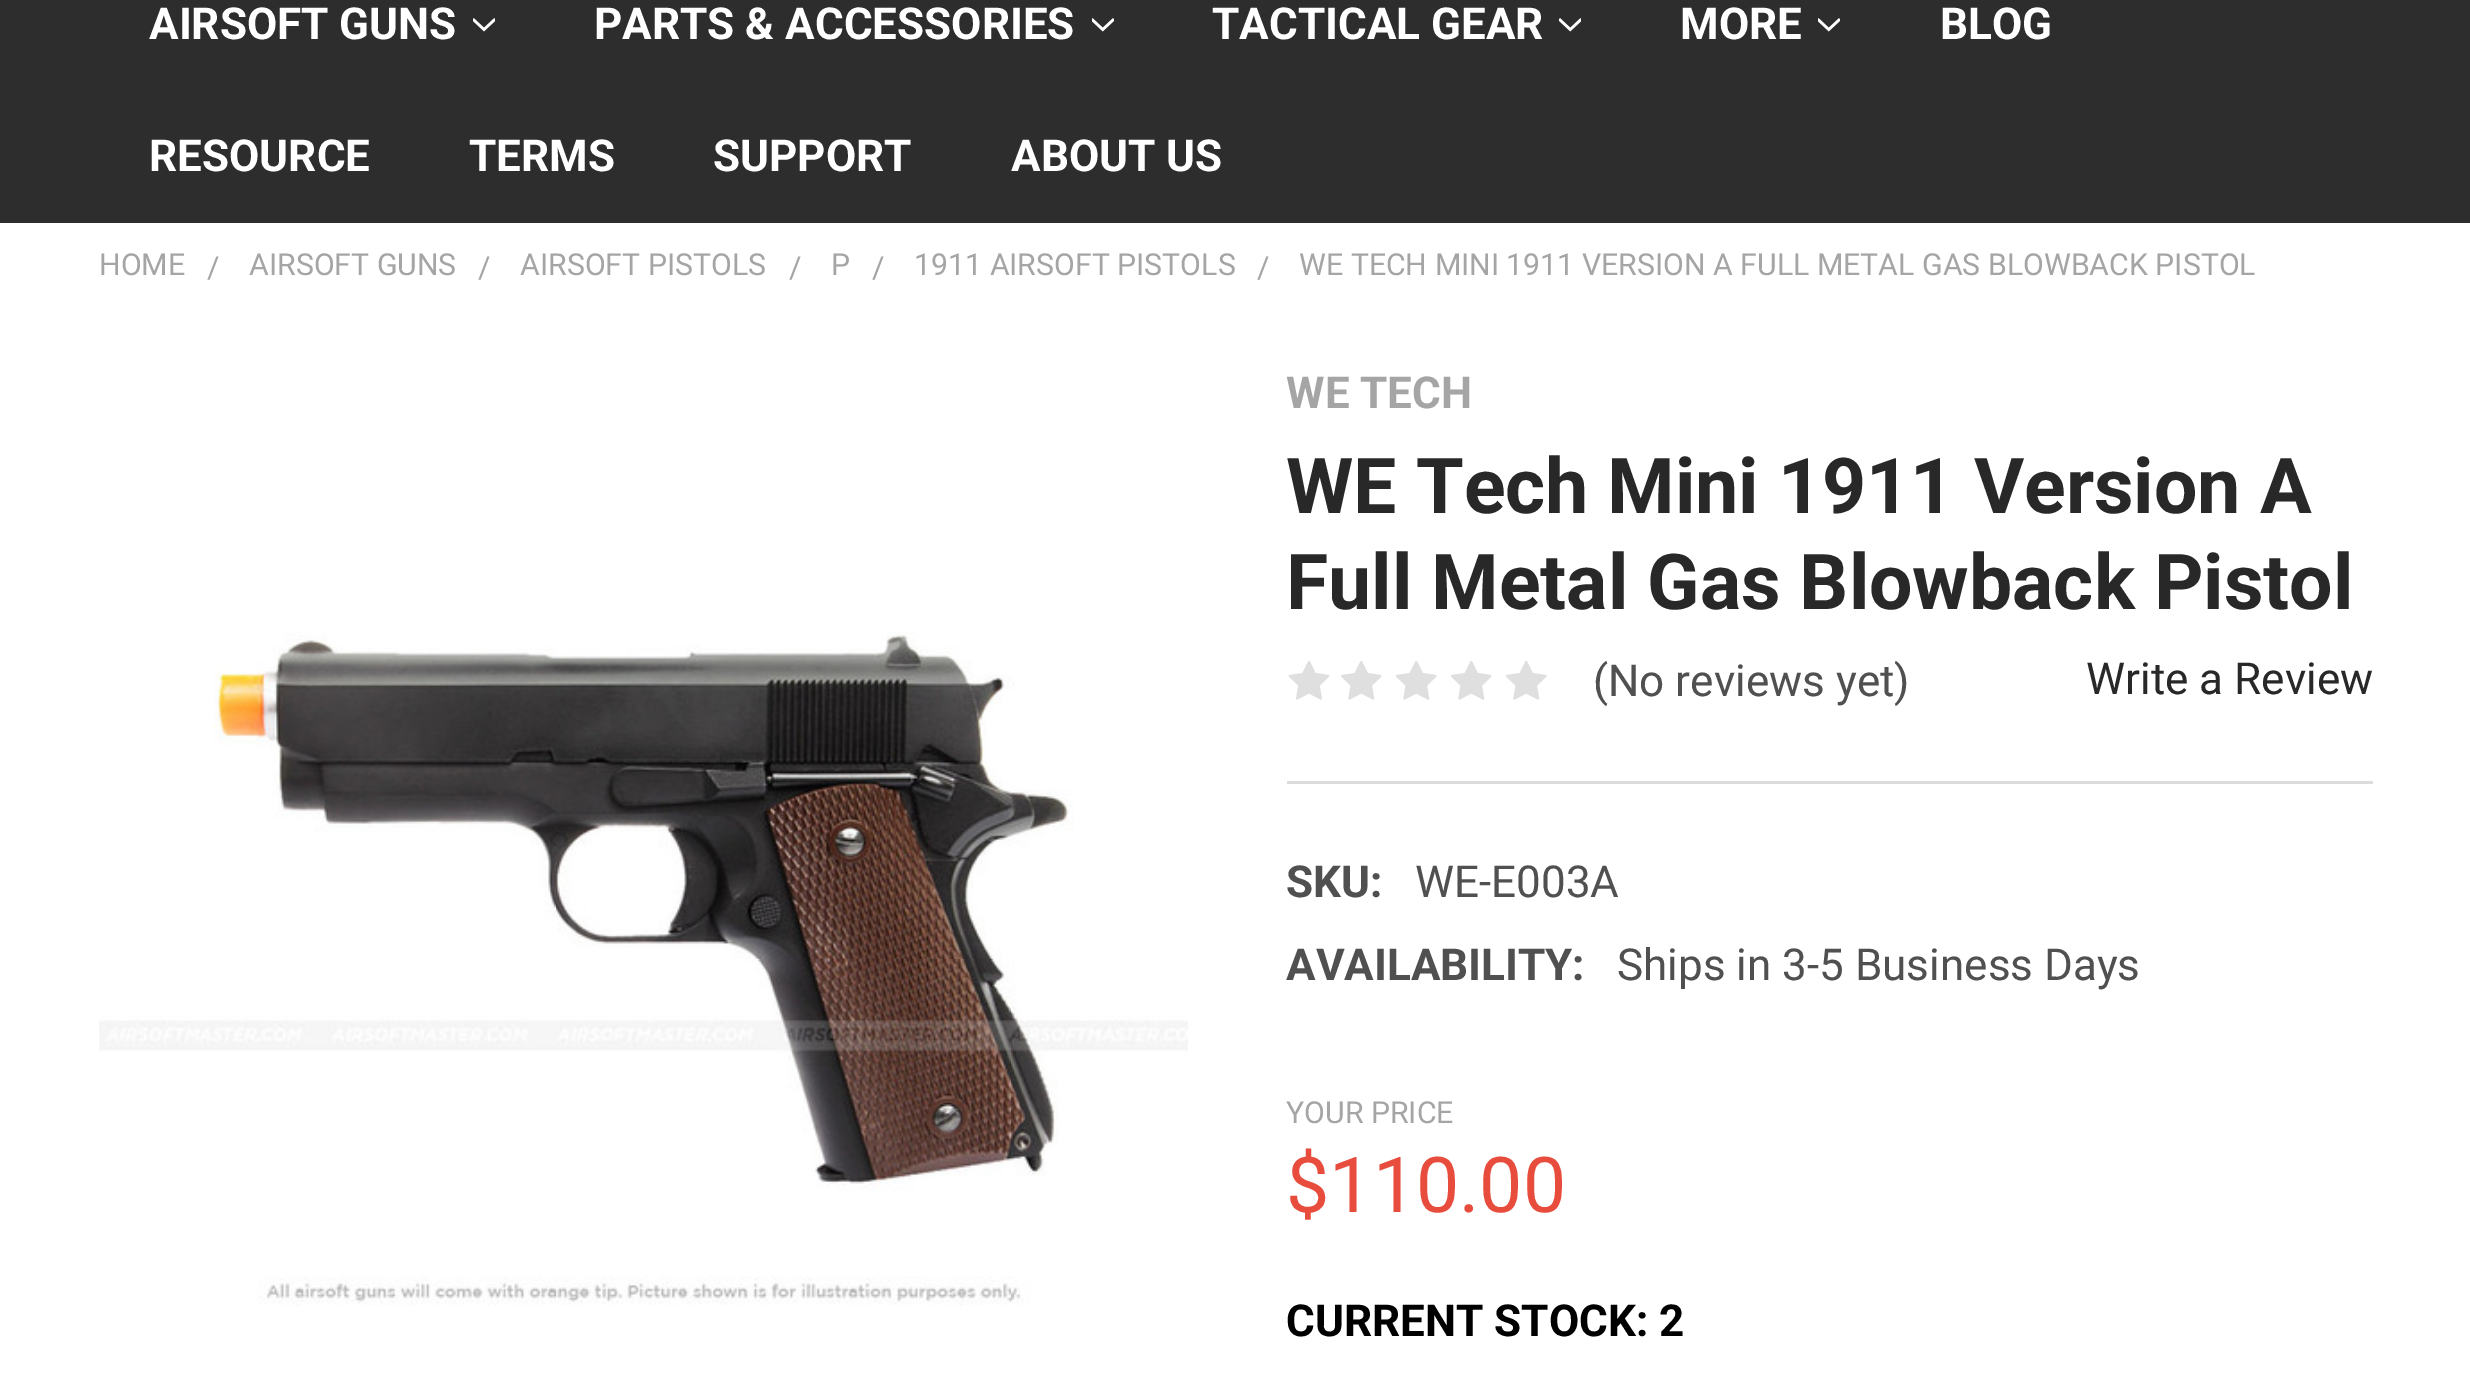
%!PS-Adobe-3.0
%%BoundingBox: 0 0 2470 1380
%%LanguageLevel: 3
%%Pages: 1
%%EndComments
%%BeginProlog
/drawimage { 5 dict begin { /h /w /y /x /name } { exch def } forall
  gsave x y translate w h scale
  w h 8 [w 0 0 h 0 0] name (r) file false 3 colorimage grestore end } def
%%EndProlog
%%BeginSetup
<< /PageSize [2470 1380] >> setpagedevice
%%EndSetup
%%Page: 1 1
0 1380 translate 1 -1 scale
4 setmiterlimit
1 setgray
0 0 2470 1380 rectfill
0.176 setgray
0 0 2470 223 rectfill
(images/1.raw) 473 18 22 14 drawimage
(images/2.raw) 1092 18 22 14 drawimage
(images/3.raw) 1559 18 22 14 drawimage
(images/2.raw) 1818 18 22 14 drawimage
(images/4.raw) 99 632 1089 674 drawimage
(images/5.raw) 1288 661 42 39 drawimage
(images/6.raw) 1341 661 41 39 drawimage
(images/6.raw) 1396 661 41 39 drawimage
(images/6.raw) 1451 661 41 39 drawimage
(images/6.raw) 1506 661 41 39 drawimage
0.863 setgray
1287 781 1086 3 rectfill
/Roboto-Bold [44 0 0 -44 0 0] selectfont
1 setgray
149 39 moveto (AIRSOFT GUNS) show
594 39 moveto (PARTS & ACCESSORIES) show
1212 39 moveto (TACTICAL GEAR) show
1680 39 moveto (MORE) show
1940 39 moveto (BLOG) show
149 171 moveto (RESOURCE) show
469 171 moveto (TERMS) show
713 171 moveto (SUPPORT) show
1011 171 moveto (ABOUT US) show
/Roboto-Regular [30.25 0 0 -30.25 0 0] selectfont
0.647 setgray
99 275 moveto (HOME) show
207 278 moveto (/) show
249 275 moveto (AIRSOFT GUNS) show
478 278 moveto (/) show
520 275 moveto (AIRSOFT PISTOLS) show
789 278 moveto (/) show
831 275 moveto (P) show
872 278 moveto (/) show
914 275 moveto (1911 AIRSOFT PISTOLS) show
1257 278 moveto (/) show
1299 275 moveto (WE TECH MINI 1911 VERSION A FULL METAL GAS BLOWBACK PISTOL) show
/Roboto-Bold [44 0 0 -44 0 0] selectfont
1286 408 moveto (WE TECH) show
/Roboto-Bold [77 0 0 -77 0 0] selectfont
0.157 setgray
1286 513 moveto (WE Tech Mini 1911 Version A) show
1286 609 moveto (Full Metal Gas Blowback Pistol) show
/Roboto-Regular [44 0 0 -44 0 0] selectfont
0.314 setgray
1593 696 moveto (\(No reviews yet\)) show
0.157 setgray
2086 694 moveto (Write a Review) show
/Roboto-Bold [44 0 0 -44 0 0] selectfont
0.314 setgray
1286 897 moveto (SKU:) show
/Roboto-Regular [44 0 0 -44 0 0] selectfont
1415 897 moveto (WE-E003A) show
/Roboto-Bold [44 0 0 -44 0 0] selectfont
1286 980 moveto (AVAILABILITY:) show
/Roboto-Regular [44 0 0 -44 0 0] selectfont
1617 980 moveto (Ships in 3-5 Business Days) show
/Roboto-Regular [30.25 0 0 -30.25 0 0] selectfont
0.647 setgray
1286 1123 moveto (YOUR PRICE) show
/Roboto-Regular [77 0 0 -77 0 0] selectfont
0.906 0.298 0.235 setrgbcolor
1286 1212 moveto ($110.00) show
/Roboto-Bold [44 0 0 -44 0 0] selectfont
0 setgray
1286 1336 moveto (CURRENT STOCK: 2) show
showpage
%%EOF
